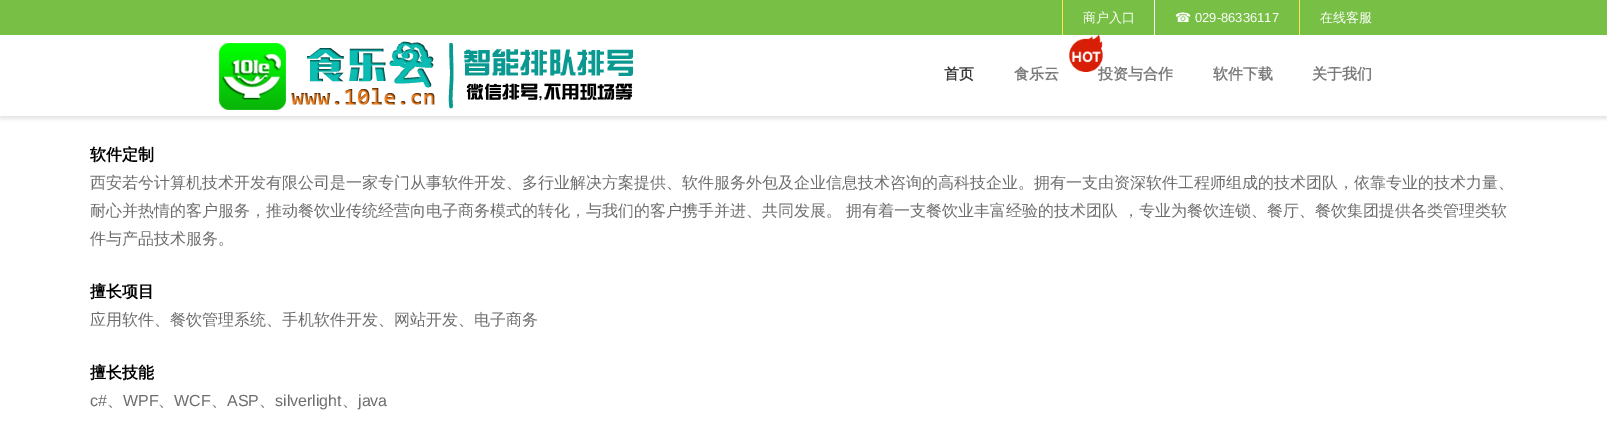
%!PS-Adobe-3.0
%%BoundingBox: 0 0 1607 443
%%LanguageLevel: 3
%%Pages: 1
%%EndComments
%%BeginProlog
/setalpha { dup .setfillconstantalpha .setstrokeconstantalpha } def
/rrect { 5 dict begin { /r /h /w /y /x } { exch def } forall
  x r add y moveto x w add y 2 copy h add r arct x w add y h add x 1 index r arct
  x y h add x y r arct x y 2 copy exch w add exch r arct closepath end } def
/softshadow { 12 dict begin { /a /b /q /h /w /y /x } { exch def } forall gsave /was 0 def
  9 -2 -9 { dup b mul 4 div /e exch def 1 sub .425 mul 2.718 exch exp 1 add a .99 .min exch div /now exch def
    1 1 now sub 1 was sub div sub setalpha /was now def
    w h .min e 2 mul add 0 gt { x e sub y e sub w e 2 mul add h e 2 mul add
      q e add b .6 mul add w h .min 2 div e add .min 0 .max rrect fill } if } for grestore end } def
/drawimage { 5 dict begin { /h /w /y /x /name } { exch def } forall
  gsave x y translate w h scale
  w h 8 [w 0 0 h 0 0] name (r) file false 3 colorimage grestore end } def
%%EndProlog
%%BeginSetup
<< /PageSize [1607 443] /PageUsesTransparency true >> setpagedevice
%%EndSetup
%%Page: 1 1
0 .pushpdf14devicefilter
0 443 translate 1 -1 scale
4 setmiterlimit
1 setgray
0 0 1607 443 rectfill
gsave
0 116 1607 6 rectclip
0.902 setgray
0 3 1607 116 0 1.5 1 softshadow
grestore
0.467 0.749 0.271 setrgbcolor
0 0 1607 35 rectfill
0.98 0.918 0.31 setrgbcolor
1062 0 1 35 rectfill
0.969 setgray
1154 0 1 35 rectfill
0.98 0.918 0.31 setrgbcolor
1299 0 1 35 rectfill
(images/1.raw) 219 41 414 69 drawimage
(images/2.raw) 1068 34 35 38 drawimage
/WenQuanYiZenHei-Medium [13 0 0 -13 0 0] selectfont
1 setgray
1083 22 moveto (商户入口) show
/DejaVuSans-Regular [13 0 0 -13 0 0] selectfont
1175 22 moveto (☎) show
/LiberationSans-Regular [13 0 0 -13 0 0] selectfont
1195 22 moveto (029-86336117) show
/WenQuanYiZenHei-Medium [13 0 0 -13 0 0] selectfont
1320 22 moveto (在线客服) show
/WenQuanYiZenHei-Bold [15 0 0 -15 0 0] selectfont
0.224 setgray
944 79 moveto (首页) show
0.482 setgray
1014 79 moveto (食乐云) show
1098 79 moveto (投资与合作) show
1213 79 moveto (软件下载) show
1312 79 moveto (关于我们) show
/WenQuanYiZenHei-Bold [16 0 0 -16 0 0] selectfont
0 setgray
90 160 moveto (软件定制) show
/WenQuanYiZenHei-Medium [16 0 0 -16 0 0] selectfont
0.427 setgray
90 188 moveto (西安若兮计算机技术开发有限公司是一家专门从事软件开发、多行业解决方案提供、软件服务外包及企业信息技术咨询的高科技企业。拥有一支由资深软件工程师组成的技术团队，依靠专业的技术力量、) show
90 216 moveto (耐心并热情的客户服务，推动餐饮业传统经营向电子商务模式的转化，与我们的客户携手并进、共同发展。) show
846 216 moveto (拥有着一支餐饮业丰富经验的技术团队 ，专业为餐饮连锁、餐厅、餐饮集团提供各类管理类软) show
90 244 moveto (件与产品技术服务。) show
/WenQuanYiZenHei-Bold [16 0 0 -16 0 0] selectfont
0 setgray
90 297 moveto (擅长项目) show
/WenQuanYiZenHei-Medium [16 0 0 -16 0 0] selectfont
0.427 setgray
90 325 moveto (应用软件、餐饮管理系统、手机软件开发、网站开发、电子商务) show
/WenQuanYiZenHei-Bold [16 0 0 -16 0 0] selectfont
0 setgray
90 378 moveto (擅长技能) show
/LiberationSans-Regular [16 0 0 -16 0 0] selectfont
0.427 setgray
90 406 moveto (c#) show
/WenQuanYiZenHei-Medium [16 0 0 -16 0 0] selectfont
107 406 moveto (、) show
/LiberationSans-Regular [16 0 0 -16 0 0] selectfont
123 406 moveto (WPF) show
/WenQuanYiZenHei-Medium [16 0 0 -16 0 0] selectfont
158 406 moveto (、) show
/LiberationSans-Regular [16 0 0 -16 0 0] selectfont
174 406 moveto (WCF) show
/WenQuanYiZenHei-Medium [16 0 0 -16 0 0] selectfont
211 406 moveto (、) show
/LiberationSans-Regular [16 0 0 -16 0 0] selectfont
227 406 moveto (ASP) show
/WenQuanYiZenHei-Medium [16 0 0 -16 0 0] selectfont
259 406 moveto (、) show
/LiberationSans-Regular [16 0 0 -16 0 0] selectfont
275 406 moveto (silverlight) show
/WenQuanYiZenHei-Medium [16 0 0 -16 0 0] selectfont
342 406 moveto (、) show
/LiberationSans-Regular [16 0 0 -16 0 0] selectfont
358 406 moveto (java) show
.poppdf14devicefilter showpage
%%EOF
